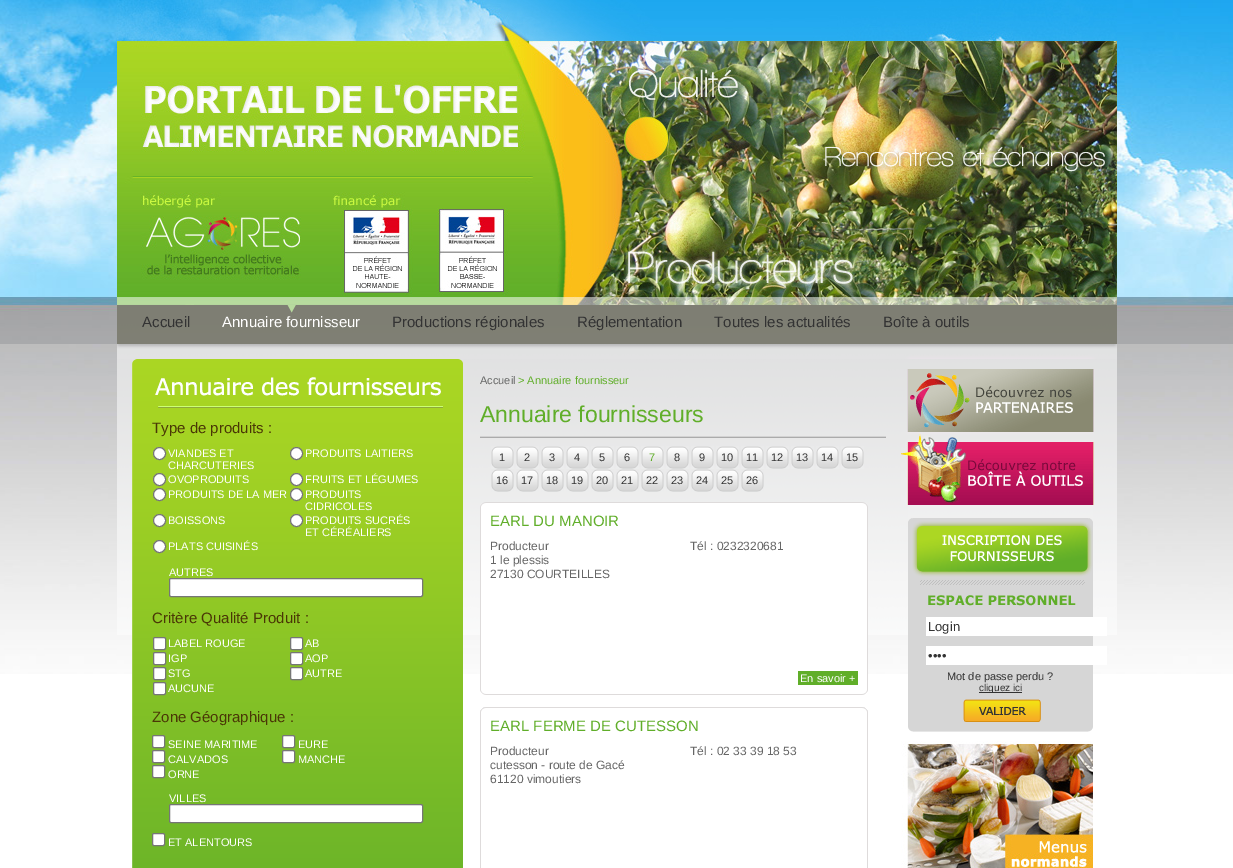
%!PS-Adobe-3.0
%%BoundingBox: 0 0 1233 868
%%LanguageLevel: 3
%%Pages: 1
%%EndComments
%%BeginProlog
/rrect { 5 dict begin { /r /h /w /y /x } { exch def } forall
  x r add y moveto x w add y 2 copy h add r arct x w add y h add x 1 index r arct
  x y h add x y r arct x y 2 copy exch w add exch r arct closepath end } def
/drawimage { 5 dict begin { /h /w /y /x /name } { exch def } forall
  gsave x y translate w h scale
  w h 8 [w 0 0 h 0 0] name (r) file false 3 colorimage grestore end } def
%%EndProlog
%%BeginSetup
<< /PageSize [1233 868] >> setpagedevice
%%EndSetup
%%Page: 1 1
0 868 translate 1 -1 scale
4 setmiterlimit
1 setgray
0 0 1233 868 rectfill
(images/1.raw) 0 0 1233 674 drawimage
(images/2.raw) 117 359 1000 276 drawimage
(images/3.raw) 117 0 1000 305 drawimage
(images/4.raw) 117 305 1000 54 drawimage
(images/5.raw) 287 305 9 8 drawimage
(images/6.raw) 132 359 331 509 drawimage
newpath 159.5 453.5 6 0 360 arc closepath gsave fill grestore
0.463 setgray
stroke
1 setgray
newpath 296.5 453.5 6 0 360 arc closepath gsave fill grestore
0.463 setgray
stroke
1 setgray
newpath 159.5 479.5 6 0 360 arc closepath gsave fill grestore
0.463 setgray
stroke
1 setgray
newpath 296.5 479.5 6 0 360 arc closepath gsave fill grestore
0.463 setgray
stroke
1 setgray
newpath 159.5 494.5 6 0 360 arc closepath gsave fill grestore
0.463 setgray
stroke
1 setgray
newpath 296.5 494.5 6 0 360 arc closepath gsave fill grestore
0.463 setgray
stroke
1 setgray
newpath 159.5 520.5 6 0 360 arc closepath gsave fill grestore
0.463 setgray
stroke
1 setgray
newpath 296.5 520.5 6 0 360 arc closepath gsave fill grestore
0.463 setgray
stroke
1 setgray
newpath 159.5 546.5 6 0 360 arc closepath gsave fill grestore
0.463 setgray
stroke
1 setgray
169.5 578.5 253 18 1.5 rrect gsave fill grestore
0.463 setgray
stroke
1 setgray
153.5 637.5 12 12 1.5 rrect gsave fill grestore
0.463 setgray
stroke
1 setgray
290.5 637.5 12 12 1.5 rrect gsave fill grestore
0.463 setgray
stroke
1 setgray
153.5 652.5 12 12 1.5 rrect gsave fill grestore
0.463 setgray
stroke
1 setgray
290.5 652.5 12 12 1.5 rrect gsave fill grestore
0.463 setgray
stroke
1 setgray
153.5 667.5 12 12 1.5 rrect gsave fill grestore
0.463 setgray
stroke
1 setgray
290.5 667.5 12 12 1.5 rrect gsave fill grestore
0.463 setgray
stroke
1 setgray
153.5 682.5 12 12 1.5 rrect gsave fill grestore
0.463 setgray
stroke
1 setgray
152.5 735.5 12 12 1.5 rrect gsave fill grestore
0.463 setgray
stroke
1 setgray
282.5 735.5 12 12 1.5 rrect gsave fill grestore
0.463 setgray
stroke
1 setgray
152.5 750.5 12 12 1.5 rrect gsave fill grestore
0.463 setgray
stroke
1 setgray
282.5 750.5 12 12 1.5 rrect gsave fill grestore
0.463 setgray
stroke
1 setgray
152.5 765.5 12 12 1.5 rrect gsave fill grestore
0.463 setgray
stroke
1 setgray
169.5 804.5 253 18 1.5 rrect gsave fill grestore
0.463 setgray
stroke
1 setgray
152.5 833.5 12 12 1.5 rrect gsave fill grestore
0.463 setgray
stroke
(images/7.raw) 480 436 406 2 drawimage
(images/8.raw) 491 446 23 23 drawimage
(images/8.raw) 516 446 23 23 drawimage
(images/8.raw) 541 446 23 23 drawimage
(images/8.raw) 566 446 23 23 drawimage
(images/8.raw) 591 446 23 23 drawimage
(images/8.raw) 616 446 23 23 drawimage
(images/8.raw) 641 446 23 23 drawimage
(images/8.raw) 666 446 23 23 drawimage
(images/8.raw) 691 446 23 23 drawimage
(images/8.raw) 716 446 23 23 drawimage
(images/8.raw) 741 446 23 23 drawimage
(images/8.raw) 766 446 23 23 drawimage
(images/8.raw) 791 446 23 23 drawimage
(images/8.raw) 816 446 23 23 drawimage
(images/8.raw) 841 446 23 23 drawimage
(images/8.raw) 491 469 23 23 drawimage
(images/8.raw) 516 469 23 23 drawimage
(images/8.raw) 541 469 23 23 drawimage
(images/8.raw) 566 469 23 23 drawimage
(images/8.raw) 591 469 23 23 drawimage
(images/8.raw) 616 469 23 23 drawimage
(images/8.raw) 641 469 23 23 drawimage
(images/8.raw) 666 469 23 23 drawimage
(images/8.raw) 691 469 23 23 drawimage
(images/8.raw) 716 469 23 23 drawimage
(images/8.raw) 741 469 23 23 drawimage
(images/9.raw) 480 502 388 193 drawimage
0.376 0.682 0.161 setrgbcolor
798 671 60 14 rectfill
(images/10.raw) 480 707 388 161 drawimage
(images/11.raw) 907 369 188 63 drawimage
(images/12.raw) 901 432 193 73 drawimage
(images/13.raw) 908 585 185 147 drawimage
(images/14.raw) 908 505 185 80 drawimage
(images/15.raw) 928 595 148 11 drawimage
1 setgray
926 617 181 19 rectfill
926 646 181 19 rectfill
0.2 setgray
979 692 43 1 rectfill
(images/16.raw) 963 699 78 23 drawimage
(images/17.raw) 901 741 192 127 drawimage
/LiberationSans-Regular [15 0 0 -15 0 0] selectfont
142 327 moveto (Accueil) show
1 setgray
222 327 moveto (Annuaire fournisseur) show
0.2 setgray
392 327 moveto (Productions régionales) show
577 327 moveto (Réglementation) show
714 327 moveto (Toutes les actualités) show
883 327 moveto (Boîte à outils) show
0.29 0.216 0.024 setrgbcolor
152 433 moveto (Type de produits :) show
/LiberationSans-Regular [11 0 0 -11 0 0] selectfont
1 setgray
168 457 moveto (VIANDES ET) show
168 469 moveto (CHARCUTERIES) show
305 457 moveto (PRODUITS LAITIERS) show
168 483 moveto (OVOPRODUITS) show
305 483 moveto (FRUITS ET LÉGUMES) show
168 498 moveto (PRODUITS DE LA MER) show
305 498 moveto (PRODUITS) show
305 510 moveto (CIDRICOLES) show
168 524 moveto (BOISSONS) show
305 524 moveto (PRODUITS SUCRÉS) show
305 536 moveto (ET CÉRÉALIERS) show
168 550 moveto (PLATS CUISINÉS) show
169 576 moveto (AUTRES) show
/LiberationSans-Regular [15 0 0 -15 0 0] selectfont
0.29 0.216 0.024 setrgbcolor
152 623 moveto (Critère Qualité Produit :) show
/LiberationSans-Regular [11 0 0 -11 0 0] selectfont
1 setgray
168 647 moveto (LABEL ROUGE) show
305 647 moveto (AB) show
168 662 moveto (IGP) show
305 662 moveto (AOP) show
168 677 moveto (STG) show
305 677 moveto (AUTRE) show
168 692 moveto (AUCUNE) show
/LiberationSans-Regular [15 0 0 -15 0 0] selectfont
0.29 0.216 0.024 setrgbcolor
152 722 moveto (Zone Géographique :) show
/LiberationSans-Regular [11 0 0 -11 0 0] selectfont
1 setgray
168 748 moveto (SEINE MARITIME) show
298 748 moveto (EURE) show
168 763 moveto (CALVADOS) show
298 763 moveto (MANCHE) show
168 778 moveto (ORNE) show
169 802 moveto (VILLES) show
168 846 moveto (ET ALENTOURS) show
0.4 setgray
480 384 moveto (Accueil) show
0.376 0.682 0.161 setrgbcolor
518 384 moveto (> Annuaire fournisseur) show
/LiberationSans-Regular [23 0 0 -23 0 0] selectfont
480 422 moveto (Annuaire fournisseurs) show
/LiberationSans-Regular [11 0 0 -11 0 0] selectfont
0.2 setgray
499 461 moveto (1) show
524 461 moveto (2) show
549 461 moveto (3) show
574 461 moveto (4) show
599 461 moveto (5) show
624 461 moveto (6) show
0.376 0.682 0.161 setrgbcolor
649 461 moveto (7) show
0.2 setgray
674 461 moveto (8) show
699 461 moveto (9) show
721 461 moveto (10) show
746 461 moveto (11) show
771 461 moveto (12) show
796 461 moveto (13) show
821 461 moveto (14) show
846 461 moveto (15) show
496 484 moveto (16) show
521 484 moveto (17) show
546 484 moveto (18) show
571 484 moveto (19) show
596 484 moveto (20) show
621 484 moveto (21) show
646 484 moveto (22) show
671 484 moveto (23) show
696 484 moveto (24) show
721 484 moveto (25) show
746 484 moveto (26) show
/LiberationSans-Regular [15 0 0 -15 0 0] selectfont
0.376 0.682 0.161 setrgbcolor
490 526 moveto (EARL DU MANOIR) show
/LiberationSans-Regular [12 0 0 -12 0 0] selectfont
0.4 setgray
490 550 moveto (Producteur) show
490 564 moveto (1 le plessis) show
490 578 moveto (27130 COURTEILLES) show
690 550 moveto (Tél : 0232320681) show
/LiberationSans-Regular [11 0 0 -11 0 0] selectfont
1 setgray
800 682 moveto (En savoir +) show
/LiberationSans-Regular [15 0 0 -15 0 0] selectfont
0.376 0.682 0.161 setrgbcolor
490 731 moveto (EARL FERME DE CUTESSON) show
/LiberationSans-Regular [12 0 0 -12 0 0] selectfont
0.4 setgray
490 755 moveto (Producteur) show
490 769 moveto (cutesson - route de Gacé) show
490 783 moveto (61120 vimoutiers) show
690 755 moveto (Tél : 02 33 39 18 53) show
/LiberationSans-Regular [13 0 0 -13 0 0] selectfont
0.2 setgray
928 631 moveto (Login) show
928 660 moveto (••••) show
/LiberationSans-Regular [11 0 0 -11 0 0] selectfont
947 680 moveto (Mot de passe perdu ?) show
/LiberationSans-Regular [10 0 0 -10 0 0] selectfont
979 691 moveto (cliquez ici) show
showpage
%%EOF
